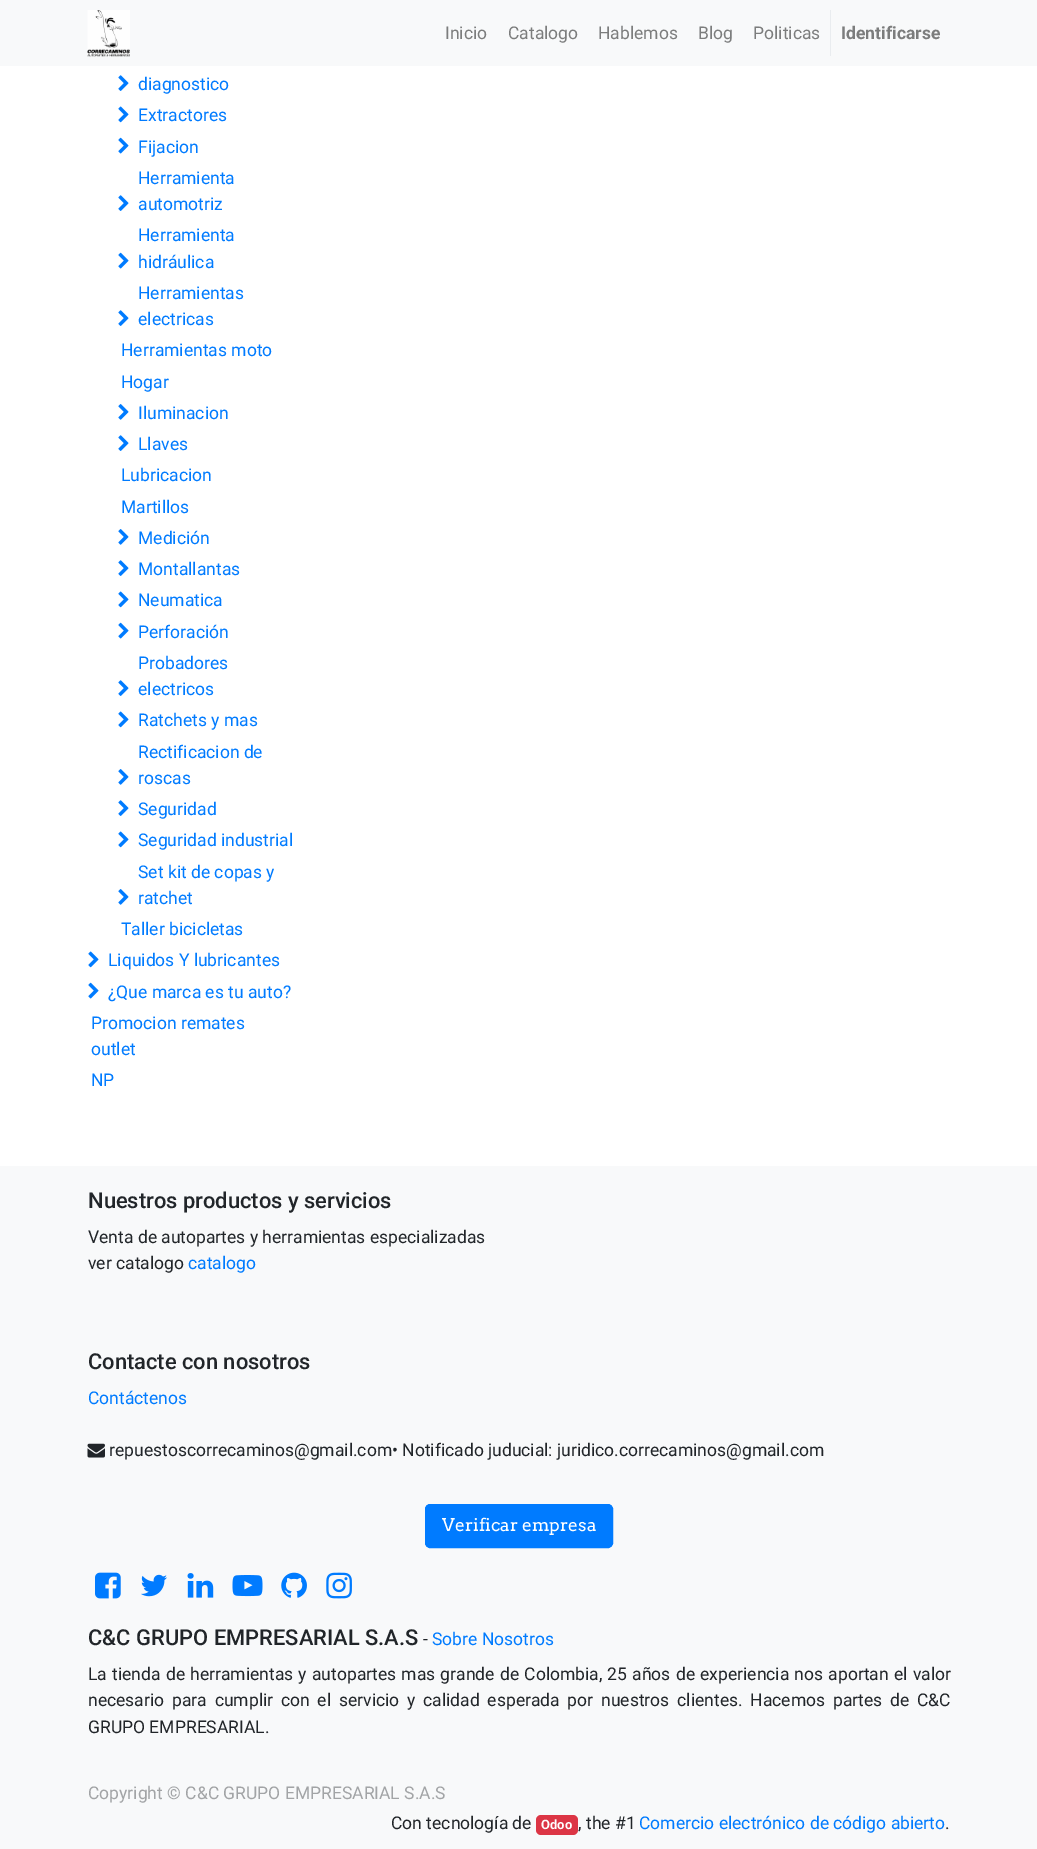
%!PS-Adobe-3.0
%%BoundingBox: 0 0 1037 1849
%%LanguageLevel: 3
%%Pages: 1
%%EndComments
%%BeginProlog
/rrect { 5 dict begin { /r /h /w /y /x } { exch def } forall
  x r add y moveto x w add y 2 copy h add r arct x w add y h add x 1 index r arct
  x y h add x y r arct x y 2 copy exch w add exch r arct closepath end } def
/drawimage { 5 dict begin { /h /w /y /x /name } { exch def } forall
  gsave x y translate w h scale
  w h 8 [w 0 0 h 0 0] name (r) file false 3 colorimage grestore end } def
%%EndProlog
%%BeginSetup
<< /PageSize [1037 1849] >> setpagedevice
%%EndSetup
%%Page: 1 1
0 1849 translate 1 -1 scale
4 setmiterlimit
1 setgray
0 0 1037 1849 rectfill
0.973 0.976 0.98 setrgbcolor
0 0 1037 66 rectfill
(images/1.raw) 87 10 43 47 drawimage
0.914 0.925 0.937 setrgbcolor
830 10 1 46 rectfill
(images/2.raw) 118 75 11 16 drawimage
(images/3.raw) 118 106 11 17 drawimage
(images/4.raw) 118 137 11 17 drawimage
(images/2.raw) 118 195 11 16 drawimage
(images/4.raw) 118 252 11 17 drawimage
(images/2.raw) 118 310 11 16 drawimage
(images/5.raw) 118 404 11 16 drawimage
(images/2.raw) 118 435 11 16 drawimage
(images/5.raw) 118 529 11 16 drawimage
(images/2.raw) 118 560 11 16 drawimage
(images/3.raw) 118 591 11 17 drawimage
(images/4.raw) 118 622 11 17 drawimage
(images/2.raw) 118 680 11 16 drawimage
(images/3.raw) 118 711 11 17 drawimage
(images/5.raw) 118 769 11 16 drawimage
(images/2.raw) 118 800 11 16 drawimage
(images/3.raw) 118 831 11 17 drawimage
(images/5.raw) 118 889 11 16 drawimage
(images/3.raw) 88 951 11 17 drawimage
(images/4.raw) 88 982 11 17 drawimage
0.973 0.976 0.98 setrgbcolor
0 1166 1037 683 rectfill
(images/6.raw) 87 1443 18 15 drawimage
0 0.482 1 setrgbcolor
425.5 1504.5 187 43 4.5 rrect gsave fill grestore
stroke
(images/7.raw) 95 1572 26 27 drawimage
(images/8.raw) 141 1574 26 23 drawimage
(images/9.raw) 187 1573 27 25 drawimage
(images/10.raw) 232 1575 31 22 drawimage
(images/11.raw) 281 1572 26 26 drawimage
(images/12.raw) 326 1572 26 27 drawimage
0.863 0.208 0.271 setrgbcolor
536 1815 42 20 5 rrect fill
/Roboto-Regular [17.5 0 0 -17.5 0 0] selectfont
0.486 0.49 0.49 setrgbcolor
445 39 moveto (Inicio) show
508 39 moveto (Catalogo) show
598 39 moveto (Hablemos) show
698 39 moveto (Blog) show
753 39 moveto (Politicas) show
/Roboto-Bold [17.5 0 0 -17.5 0 0] selectfont
841 39 moveto (Identificarse) show
/Roboto-Regular [17.5 0 0 -17.5 0 0] selectfont
0 0.482 1 setrgbcolor
138 90 moveto (diagnostico) show
138 121 moveto (Extractores) show
138 153 moveto (Fijacion) show
138 184 moveto (Herramienta) show
138 210 moveto (automotriz) show
138 241 moveto (Herramienta) show
138 268 moveto (hidráulica) show
138 299 moveto (Herramientas) show
138 325 moveto (electricas) show
121 356 moveto (Herramientas moto) show
121 388 moveto (Hogar) show
138 419 moveto (Iluminacion) show
138 450 moveto (Llaves) show
121 481 moveto (Lubricacion) show
121 513 moveto (Martillos) show
138 544 moveto (Medición) show
138 575 moveto (Montallantas) show
138 606 moveto (Neumatica) show
138 638 moveto (Perforación) show
138 669 moveto (Probadores) show
138 695 moveto (electricos) show
138 726 moveto (Ratchets y mas) show
138 758 moveto (Rectificacion de) show
138 784 moveto (roscas) show
138 815 moveto (Seguridad) show
138 846 moveto (Seguridad industrial) show
138 878 moveto (Set kit de copas y) show
138 904 moveto (ratchet) show
121 935 moveto (Taller bicicletas) show
108 966 moveto (Liquidos Y lubricantes) show
108 998 moveto (¿Que marca es tu auto?) show
91 1029 moveto (Promocion remates) show
91 1055 moveto (outlet) show
91 1086 moveto (NP) show
/Roboto-Medium [21.9 0 0 -21.9 0 0] selectfont
0.129 0.145 0.161 setrgbcolor
88 1208 moveto (Nuestros productos y servicios) show
/Roboto-Regular [17.5 0 0 -17.5 0 0] selectfont
88 1243 moveto (Venta de autopartes y herramientas especializadas) show
88 1269 moveto (ver catalogo) show
0 0.482 1 setrgbcolor
188 1269 moveto (catalogo) show
/Roboto-Medium [21.9 0 0 -21.9 0 0] selectfont
0.129 0.145 0.161 setrgbcolor
88 1369 moveto (Contacte con nosotros) show
/Roboto-Regular [17.5 0 0 -17.5 0 0] selectfont
0 0.482 1 setrgbcolor
88 1404 moveto (Contáctenos) show
0.129 0.145 0.161 setrgbcolor
109 1456 moveto (repuestoscorrecaminos@gmail.com• Notificado juducial: juridico.correcaminos@gmail.com) show
/Arvo-Regular [17.5 0 0 -17.5 0 0] selectfont
1 setgray
442 1531 moveto (Verificar empresa) show
/Roboto-Medium [21.9 0 0 -21.9 0 0] selectfont
0.129 0.145 0.161 setrgbcolor
88 1645 moveto (C&C GRUPO EMPRESARIAL S.A.S) show
/Roboto-Regular [17.5 0 0 -17.5 0 0] selectfont
423 1645 moveto (-) show
0 0.482 1 setrgbcolor
432 1645 moveto (Sobre Nosotros) show
0.129 0.145 0.161 setrgbcolor
88 1680 moveto 0.9 0 32 (La tienda de herramientas y autopartes mas grande de Colombia, 25 años de experiencia nos aportan el valor) widthshow
88 1706 moveto 3.5 0 32 (necesario para cumplir con el servicio y calidad esperada por nuestros clientes. Hacemos partes de C&C) widthshow
88 1733 moveto (GRUPO EMPRESARIAL.) show
0.635 0.643 0.651 setrgbcolor
88 1799 moveto (Copyright © C&C GRUPO EMPRESARIAL S.A.S) show
0.129 0.145 0.161 setrgbcolor
391 1829 moveto (Con tecnología de) show
/Roboto-Bold [13 0 0 -13 0 0] selectfont
1 setgray
541 1829 moveto (Odoo) show
/Roboto-Regular [17.5 0 0 -17.5 0 0] selectfont
0.129 0.145 0.161 setrgbcolor
578 1829 moveto (, the #1) show
0 0.482 1 setrgbcolor
639 1829 moveto (Comercio electrónico de código abierto) show
0.129 0.145 0.161 setrgbcolor
945 1829 moveto (.) show
showpage
%%EOF
